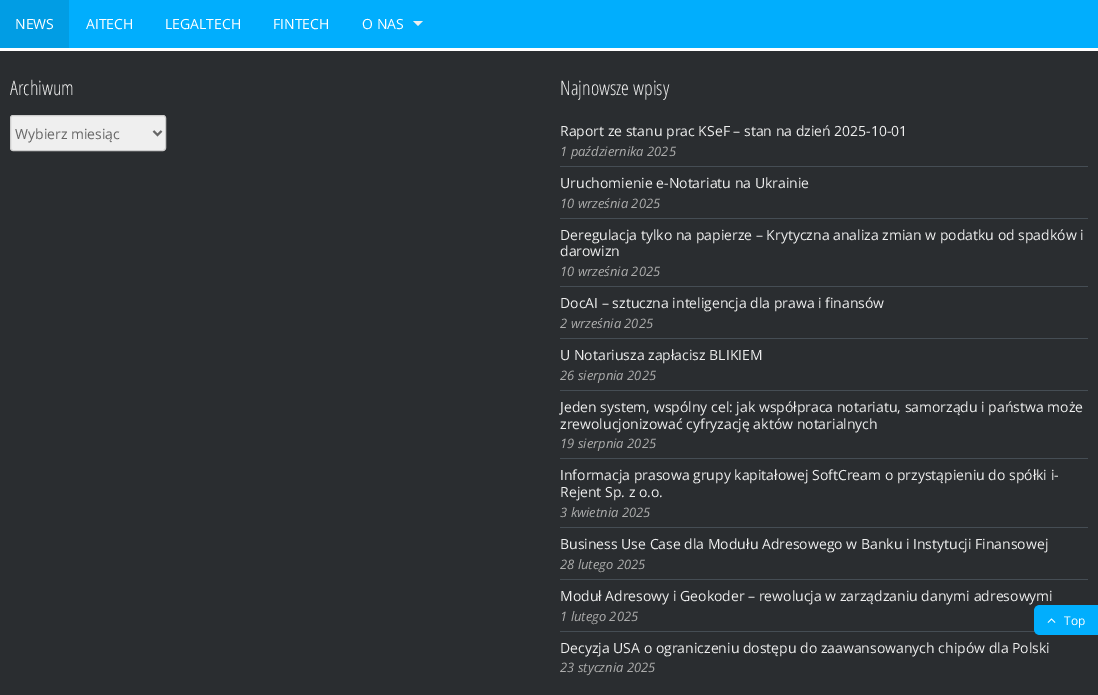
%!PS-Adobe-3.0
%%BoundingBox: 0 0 1098 695
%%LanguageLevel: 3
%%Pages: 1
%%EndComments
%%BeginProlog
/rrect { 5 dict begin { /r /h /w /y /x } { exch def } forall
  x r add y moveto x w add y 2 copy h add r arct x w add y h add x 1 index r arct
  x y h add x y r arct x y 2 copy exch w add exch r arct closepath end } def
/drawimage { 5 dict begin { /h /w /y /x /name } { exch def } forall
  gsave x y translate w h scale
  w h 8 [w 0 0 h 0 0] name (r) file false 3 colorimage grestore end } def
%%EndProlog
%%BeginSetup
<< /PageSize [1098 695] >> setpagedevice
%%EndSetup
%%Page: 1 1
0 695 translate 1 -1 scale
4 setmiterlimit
1 setgray
0 0 1098 695 rectfill
0.004 0.682 0.992 setrgbcolor
69 0 1029 48 rectfill
0.004 0.616 0.894 setrgbcolor
0 0 69 48 rectfill
0.933 setgray
newpath 413 21 moveto 423 21 lineto 418 26 lineto closepath fill
0.165 0.176 0.188 setrgbcolor
0 51 1098 644 rectfill
0.937 setgray
10.5 115.5 155 35 2.5 rrect gsave fill grestore
0.8 setgray
stroke
0.4 setgray
2 setlinewidth
newpath 153.5 131 moveto 157.5 135 lineto 161.5 131 lineto stroke
0.271 0.302 0.329 setrgbcolor
560 166 528 1 rectfill
560 218 528 1 rectfill
560 286 528 1 rectfill
560 338 528 1 rectfill
560 390 528 1 rectfill
560 458 528 1 rectfill
560 527 528 1 rectfill
560 579 528 1 rectfill
560 631 475 1 rectfill
0.004 0.682 0.992 setrgbcolor
newpath 1040 605 moveto 1098 605 lineto 1098 635 lineto 1040 635 lineto 1036.5 635 1034 632.5 1034 629 curveto 1034 611 lineto 1034 607.5 1036.5 605 1040 605 curveto closepath fill
(images/1.raw) 1047 618 9 5 drawimage
/OpenSans-Regular [14 0 0 -14 0 0] selectfont
1 setgray
15 29 moveto (NEWS) show
86 29 moveto (AITECH) show
165 29 moveto (LEGALTECH) show
273 29 moveto (FINTECH) show
362 29 moveto (O NAS) show
/OpenSansCondensed-Light [20 0 0 -20 0 0] selectfont
0.933 setgray
10 95 moveto (Archiwum) show
/OpenSans-Regular [14 0 0 -14 0 0] selectfont
0.4 setgray
15 139 moveto (Wybierz miesiąc) show
/OpenSansCondensed-Light [20 0 0 -20 0 0] selectfont
0.933 setgray
560 95 moveto (Najnowsze wpisy) show
/OpenSans-Regular [14 0 0 -14 0 0] selectfont
560 136 moveto (Raport ze stanu prac KSeF – stan na dzień 2025-10-01) show
/OpenSans-Italic [13 0 0 -13 0 0] selectfont
0.678 setgray
560 156 moveto (1 października 2025) show
/OpenSans-Regular [14 0 0 -14 0 0] selectfont
0.933 setgray
560 188 moveto (Uruchomienie e-Notariatu na Ukrainie) show
/OpenSans-Italic [13 0 0 -13 0 0] selectfont
0.678 setgray
560 208 moveto (10 września 2025) show
/OpenSans-Regular [14 0 0 -14 0 0] selectfont
0.933 setgray
560 240 moveto (Deregulacja tylko na papierze – Krytyczna analiza zmian w podatku od spadków i) show
560 256 moveto (darowizn) show
/OpenSans-Italic [13 0 0 -13 0 0] selectfont
0.678 setgray
560 276 moveto (10 września 2025) show
/OpenSans-Regular [14 0 0 -14 0 0] selectfont
0.933 setgray
560 308 moveto (DocAI – sztuczna inteligencja dla prawa i finansów) show
/OpenSans-Italic [13 0 0 -13 0 0] selectfont
0.678 setgray
560 328 moveto (2 września 2025) show
/OpenSans-Regular [14 0 0 -14 0 0] selectfont
0.933 setgray
560 360 moveto (U Notariusza zapłacisz BLIKIEM) show
/OpenSans-Italic [13 0 0 -13 0 0] selectfont
0.678 setgray
560 380 moveto (26 sierpnia 2025) show
/OpenSans-Regular [14 0 0 -14 0 0] selectfont
0.933 setgray
560 412 moveto (Jeden system, wspólny cel: jak współpraca notariatu, samorządu i państwa może) show
560 429 moveto (zrewolucjonizować cyfryzację aktów notarialnych) show
/OpenSans-Italic [13 0 0 -13 0 0] selectfont
0.678 setgray
560 448 moveto (19 sierpnia 2025) show
/OpenSans-Regular [14 0 0 -14 0 0] selectfont
0.933 setgray
560 480 moveto (Informacja prasowa grupy kapitałowej SoftCream o przystąpieniu do spółki i-) show
560 497 moveto (Rejent Sp. z o.o.) show
/OpenSans-Italic [13 0 0 -13 0 0] selectfont
0.678 setgray
560 517 moveto (3 kwietnia 2025) show
/OpenSans-Regular [14 0 0 -14 0 0] selectfont
0.933 setgray
560 549 moveto (Business Use Case dla Modułu Adresowego w Banku i Instytucji Finansowej) show
/OpenSans-Italic [13 0 0 -13 0 0] selectfont
0.678 setgray
560 569 moveto (28 lutego 2025) show
/OpenSans-Regular [14 0 0 -14 0 0] selectfont
0.933 setgray
560 601 moveto (Moduł Adresowy i Geokoder – rewolucja w zarządzaniu danymi adresowymi) show
/OpenSans-Italic [13 0 0 -13 0 0] selectfont
0.678 setgray
560 621 moveto (1 lutego 2025) show
/OpenSans-Regular [14 0 0 -14 0 0] selectfont
0.933 setgray
560 653 moveto (Decyzja USA o ograniczeniu dostępu do zaawansowanych chipów dla Polski) show
/OpenSans-Italic [13 0 0 -13 0 0] selectfont
0.678 setgray
560 672 moveto (23 stycznia 2025) show
/OpenSans-Regular [12 0 0 -12 0 0] selectfont
1 setgray
1064 625 moveto (Top) show
showpage
%%EOF
